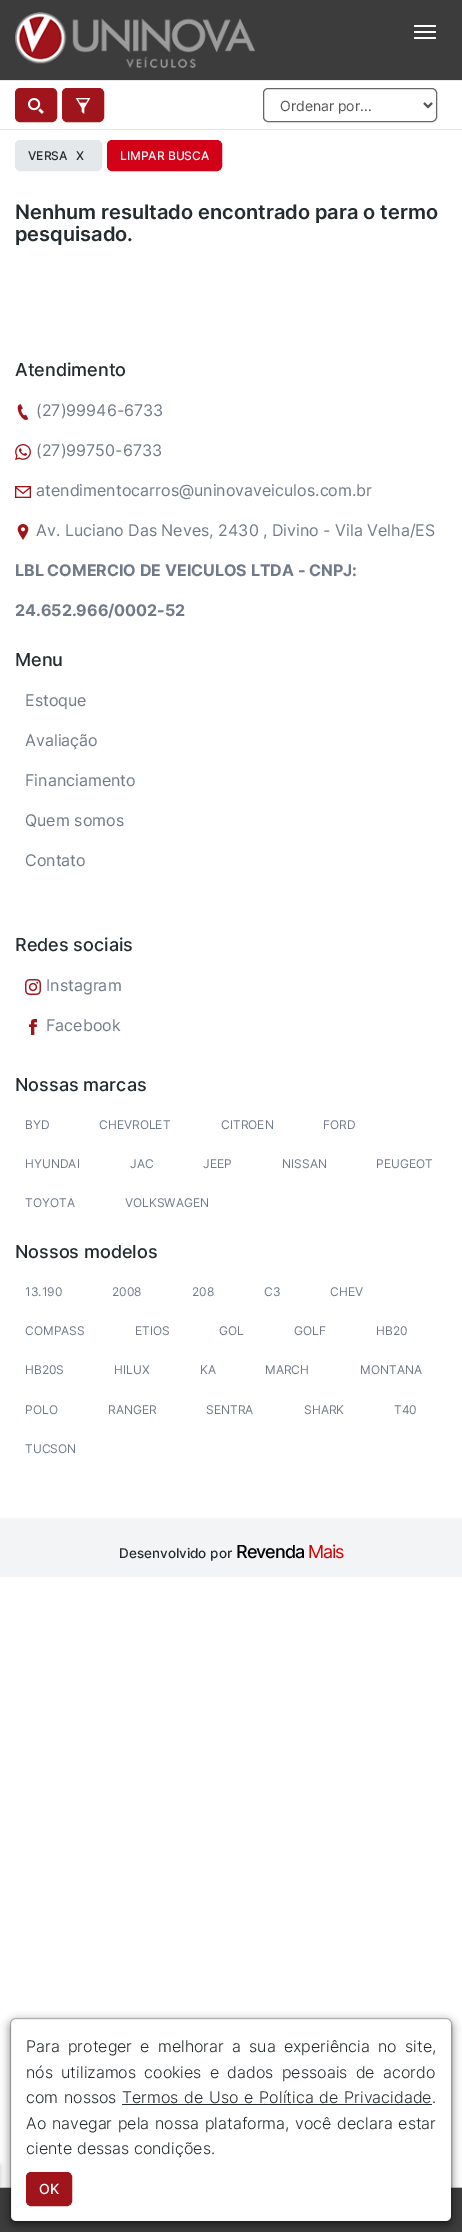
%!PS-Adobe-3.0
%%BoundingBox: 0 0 462 2232
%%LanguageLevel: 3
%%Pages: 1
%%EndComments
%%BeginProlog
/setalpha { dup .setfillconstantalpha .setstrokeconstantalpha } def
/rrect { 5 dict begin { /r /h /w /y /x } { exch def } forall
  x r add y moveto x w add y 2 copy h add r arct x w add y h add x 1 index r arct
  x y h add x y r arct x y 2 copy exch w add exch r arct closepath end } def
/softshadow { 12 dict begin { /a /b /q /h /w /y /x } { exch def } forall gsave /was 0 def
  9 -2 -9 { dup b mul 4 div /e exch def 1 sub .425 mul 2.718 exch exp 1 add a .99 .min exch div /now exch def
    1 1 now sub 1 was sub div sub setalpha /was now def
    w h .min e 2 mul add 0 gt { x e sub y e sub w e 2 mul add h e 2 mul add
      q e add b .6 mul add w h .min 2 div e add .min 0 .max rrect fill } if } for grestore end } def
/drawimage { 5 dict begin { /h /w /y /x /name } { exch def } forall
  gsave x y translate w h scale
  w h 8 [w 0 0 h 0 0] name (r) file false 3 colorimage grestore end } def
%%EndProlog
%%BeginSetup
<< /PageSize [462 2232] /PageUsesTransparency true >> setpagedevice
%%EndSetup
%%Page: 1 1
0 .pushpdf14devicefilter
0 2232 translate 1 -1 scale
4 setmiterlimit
1 setgray
0 0 462 2232 rectfill
0.235 setgray
0 0 462 80 rectfill
0.894 0.91 0.918 setrgbcolor
0 80 462 1 rectfill
(images/1.raw) 15 12 240 56 drawimage
1 setgray
414 25 22 2 1 rrect fill
414 31 22 2 1 rrect fill
414 37 22 2 1 rrect fill
0.89 0.906 0.914 setrgbcolor
0 129 462 1 rectfill
0.624 0.082 0.106 setrgbcolor
15.5 88.5 41 33 4.5 rrect gsave fill grestore
stroke
(images/2.raw) 28 98 16 16 drawimage
62.5 88.5 41 33 4.5 rrect gsave fill grestore
stroke
(images/3.raw) 75 98 16 16 drawimage
0.4 setgray
263.5 88.5 173 33 4.5 rrect stroke
0.333 setgray
2 setlinewidth
newpath 424 103 moveto 428 107 lineto 432 103 lineto stroke
0.894 0.91 0.918 setrgbcolor
15.5 140.5 86 30 4.5 rrect gsave fill grestore
0.89 0.906 0.914 setrgbcolor
1 setlinewidth
stroke
0.827 0.004 0.09 setrgbcolor
107.5 140.5 114 30 4.5 rrect gsave fill grestore
stroke
0 setgray
-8 2165 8 62 0 2.5 0.2 softshadow
(images/4.raw) 17 404 12 16 drawimage
(images/5.raw) 15 444 16 16 drawimage
(images/6.raw) 15 486 16 12 drawimage
(images/7.raw) 17 524 12 16 drawimage
(images/8.raw) 25 979 16 16 drawimage
(images/9.raw) 29 1019 8 16 drawimage
0.949 0.957 0.961 setrgbcolor
0 1518 462 59 rectfill
0.235 setgray
0 2188 462 44 rectfill
0.729 0.769 0.788 setrgbcolor
0 2187 462 1 rectfill
0 setgray
10 2021 442 204 6 4.5 0.5 softshadow
1 setgray
11 2019 440 202 5 rrect fill
0.2 setalpha
0 setgray
10.5 2018.5 441 203 5.5 rrect stroke
1 setalpha
0.145 0.173 0.184 setrgbcolor
122 2104 310 1 rectfill
0.624 0.082 0.106 setrgbcolor
26.5 2172.5 45 33 4.5 rrect gsave fill grestore
stroke
/Inter-Regular [14 0 0 -14 0 0] selectfont
0.333 setgray
280 111 moveto (Ordenar por...) show
/Inter-Medium [12 0 0 -12 0 0] selectfont
0.145 0.173 0.184 setrgbcolor
28 160 moveto (VERSA) show
76 160 moveto (X) show
1 setgray
120 160 moveto (LIMPAR BUSCA) show
/Inter-SemiBold [20 0 0 -20 0 0] selectfont
0.145 0.173 0.184 setrgbcolor
15 219 moveto (Nenhum resultado encontrado para o termo) show
15 241 moveto (pesquisado.) show
/Inter-Medium [18 0 0 -18 0 0] selectfont
15 376 moveto (Atendimento) show
/Inter-Regular [16 0 0 -16 0 0] selectfont
0.439 0.478 0.533 setrgbcolor
36 416 moveto (\(27\)99946-6733) show
36 456 moveto (\(27\)99750-6733) show
36 496 moveto (atendimentocarros@uninovaveiculos.com.br) show
36 536 moveto (Av. Luciano Das Neves, 2430 , Divino - Vila Velha/ES) show
/Inter-Bold [16 0 0 -16 0 0] selectfont
15 576 moveto (LBL COMERCIO DE VEICULOS LTDA - CNPJ:) show
15 616 moveto (24.652.966/0002-52) show
/Inter-Medium [18 0 0 -18 0 0] selectfont
0.145 0.173 0.184 setrgbcolor
15 666 moveto (Menu) show
/Inter-Regular [16 0 0 -16 0 0] selectfont
0.439 0.478 0.533 setrgbcolor
25 706 moveto (Estoque) show
25 746 moveto (Avaliação) show
25 786 moveto (Financiamento) show
25 826 moveto (Quem somos) show
25 866 moveto (Contato) show
/Inter-Medium [18 0 0 -18 0 0] selectfont
0.145 0.173 0.184 setrgbcolor
15 951 moveto (Redes sociais) show
/Inter-Regular [16 0 0 -16 0 0] selectfont
0.439 0.478 0.533 setrgbcolor
46 991 moveto (Instagram) show
46 1031 moveto (Facebook) show
/Inter-Medium [18 0 0 -18 0 0] selectfont
0.145 0.173 0.184 setrgbcolor
15 1091 moveto (Nossas marcas) show
/Inter-Regular [12 0 0 -12 0 0] selectfont
0.439 0.478 0.533 setrgbcolor
25 1129 moveto (BYD) show
99 1129 moveto (CHEVROLET) show
221 1129 moveto (CITROEN) show
323 1129 moveto (FORD) show
25 1168 moveto (HYUNDAI) show
130 1168 moveto (JAC) show
203 1168 moveto (JEEP) show
282 1168 moveto (NISSAN) show
376 1168 moveto (PEUGEOT) show
25 1207 moveto (TOYOTA) show
125 1207 moveto (VOLKSWAGEN) show
/Inter-Medium [18 0 0 -18 0 0] selectfont
0.145 0.173 0.184 setrgbcolor
15 1258 moveto (Nossos modelos) show
/Inter-Regular [12 0 0 -12 0 0] selectfont
0.439 0.478 0.533 setrgbcolor
25 1296 moveto (13.190) show
112 1296 moveto (2008) show
192 1296 moveto (208) show
264 1296 moveto (C3) show
330 1296 moveto (CHEV) show
25 1335 moveto (COMPASS) show
135 1335 moveto (ETIOS) show
219 1335 moveto (GOL) show
294 1335 moveto (GOLF) show
376 1335 moveto (HB20) show
25 1374 moveto (HB20S) show
114 1374 moveto (HILUX) show
200 1374 moveto (KA) show
265 1374 moveto (MARCH) show
360 1374 moveto (MONTANA) show
25 1414 moveto (POLO) show
108 1414 moveto (RANGER) show
206 1414 moveto (SENTRA) show
304 1414 moveto (SHARK) show
394 1414 moveto (T40) show
25 1453 moveto (TUCSON) show
/Inter-Medium [13.5 0 0 -13.5 0 0] selectfont
0.145 0.173 0.184 setrgbcolor
119 1558 moveto (Desenvolvido por) show
/Inter-Medium [18 0 0 -18 0 0] selectfont
0 setgray
236 1558 moveto -1 0 (Revenda) ashow
/Inter-Regular [18 0 0 -18 0 0] selectfont
0.843 0 0 setrgbcolor
308 1558 moveto -1 0 (Mais) ashow
/Inter-Light [16 0 0 -16 0 0] selectfont
0.145 0.173 0.184 setrgbcolor
26 2052 moveto 3.75 0 32 (Para proteger e melhorar a sua experiência no site,) widthshow
26 2078 moveto 3.75 0 32 (nós utilizamos cookies e dados pessoais de acordo) widthshow
26 2103 moveto 1.25 0 32 (com nossos) widthshow
122 2103 moveto 1.25 0 32 (Termos de Uso e Política de Privacidade) widthshow
432 2103 moveto (.) show
26 2129 moveto 1.25 0 32 (Ao navegar pela nossa plataforma, você declara estar) widthshow
26 2154 moveto (ciente dessas condições.) show
/Inter-Medium [14 0 0 -14 0 0] selectfont
1 setgray
39 2194 moveto (OK) show
.poppdf14devicefilter showpage
%%EOF
